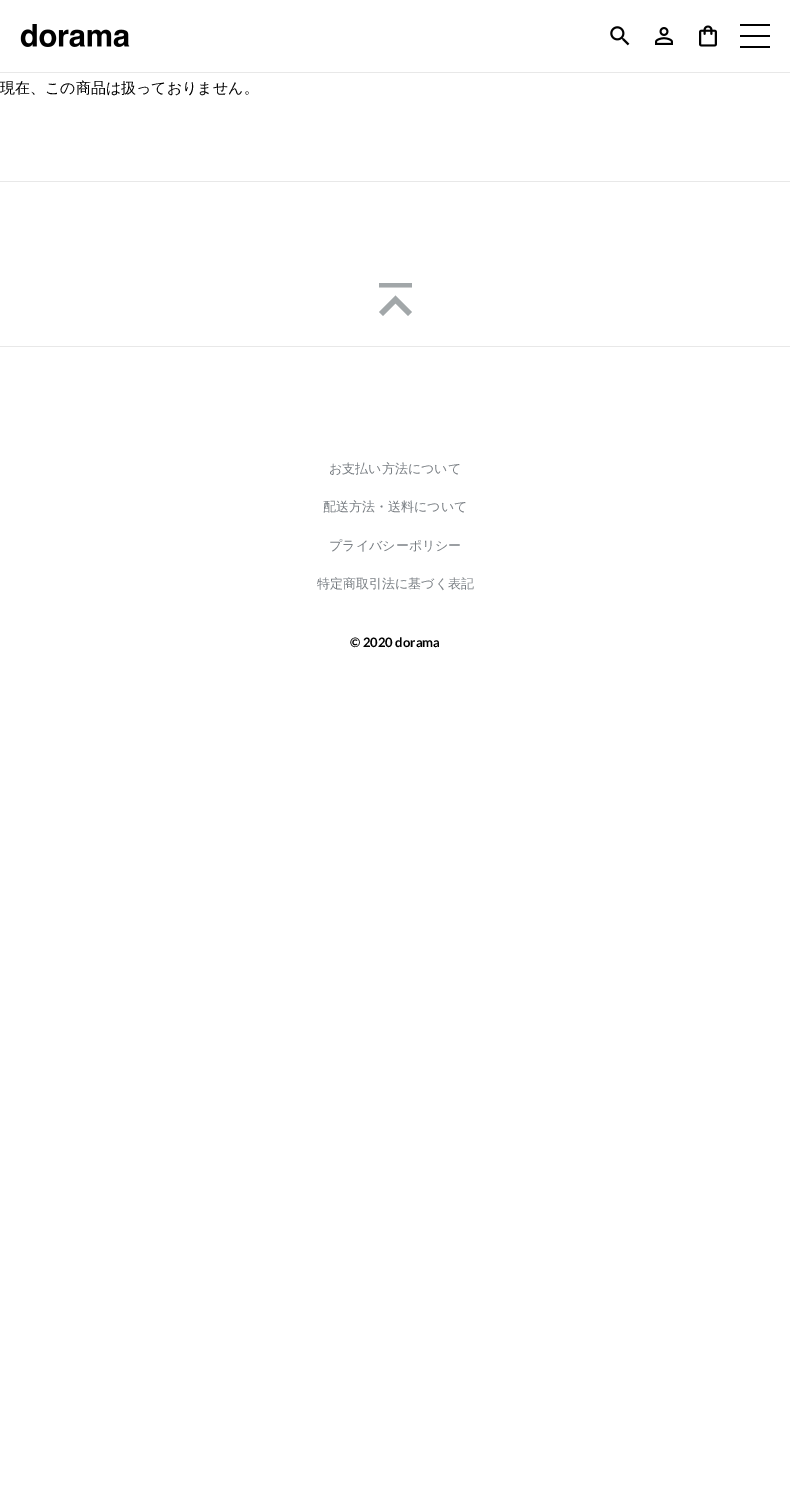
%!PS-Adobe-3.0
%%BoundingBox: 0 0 790 1489
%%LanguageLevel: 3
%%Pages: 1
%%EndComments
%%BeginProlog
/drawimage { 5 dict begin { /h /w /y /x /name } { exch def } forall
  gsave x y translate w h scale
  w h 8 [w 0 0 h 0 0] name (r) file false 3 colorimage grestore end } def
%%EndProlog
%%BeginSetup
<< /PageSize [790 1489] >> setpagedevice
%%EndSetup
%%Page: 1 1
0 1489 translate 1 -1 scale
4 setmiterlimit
1 setgray
0 0 790 1489 rectfill
0.91 setgray
0 72 790 1 rectfill
(images/1.raw) 20 24 110 23 drawimage
(images/2.raw) 610 26 20 20 drawimage
(images/3.raw) 655 27 18 18 drawimage
(images/4.raw) 699 25 18 22 drawimage
0 setgray
740 24 30 2 rectfill
740 35 30 2 rectfill
740 46 30 2 rectfill
0.91 setgray
0 181 790 1 rectfill
gsave
379 283 33 33 rectclip
0.635 0.655 0.663 setrgbcolor
newpath 383 316 moveto 395.5 303.5 lineto 408 316 lineto 412 312 lineto 395.5 295.5 lineto 379 312 lineto closepath 379 287.5 moveto 379 282 lineto 412 282 lineto 412 287.5 lineto closepath fill
grestore
0 346 790 1 rectfill
/WenQuanYiZenHei-Medium [15 0 0 -15 0 0] selectfont
0 setgray
0 93 moveto (現在、この商品は扱っておりません。) show
/WenQuanYiZenHei-Medium [13 0 0 -13 0 0] selectfont
0.471 0.49 0.51 setrgbcolor
329 473 moveto (お支払い方法について) show
323 511 moveto (配送方法・送料について) show
329 550 moveto (プライバシーポリシー) show
317 588 moveto (特定商取引法に基づく表記) show
/Lato-Bold [13 0 0 -13 0 0] selectfont
0 setgray
350 647 moveto (© 2020 dorama) show
showpage
%%EOF
